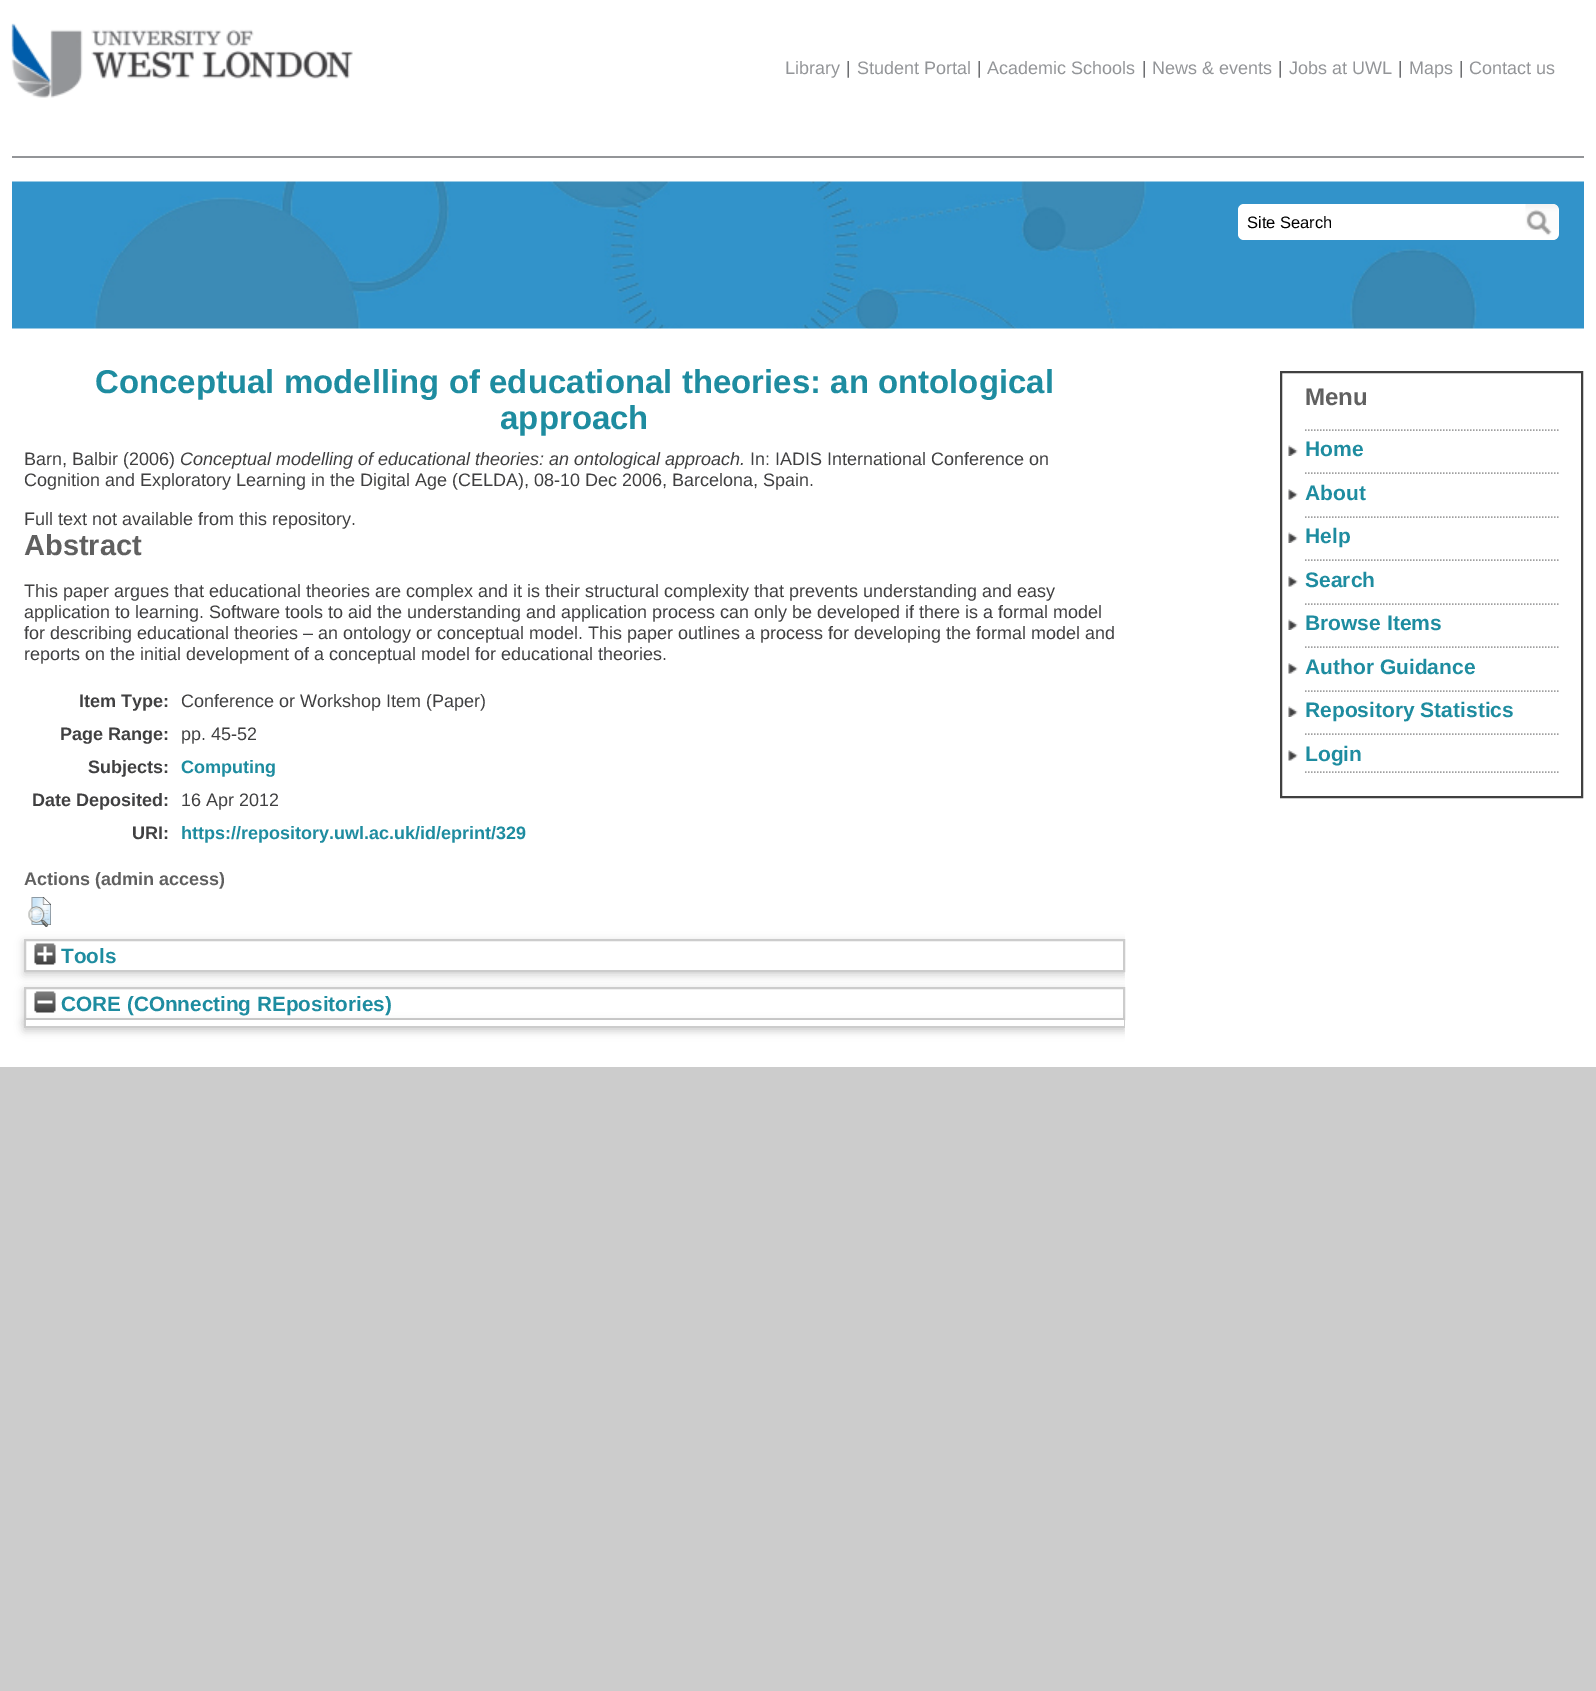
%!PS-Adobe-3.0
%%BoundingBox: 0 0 1596 1691
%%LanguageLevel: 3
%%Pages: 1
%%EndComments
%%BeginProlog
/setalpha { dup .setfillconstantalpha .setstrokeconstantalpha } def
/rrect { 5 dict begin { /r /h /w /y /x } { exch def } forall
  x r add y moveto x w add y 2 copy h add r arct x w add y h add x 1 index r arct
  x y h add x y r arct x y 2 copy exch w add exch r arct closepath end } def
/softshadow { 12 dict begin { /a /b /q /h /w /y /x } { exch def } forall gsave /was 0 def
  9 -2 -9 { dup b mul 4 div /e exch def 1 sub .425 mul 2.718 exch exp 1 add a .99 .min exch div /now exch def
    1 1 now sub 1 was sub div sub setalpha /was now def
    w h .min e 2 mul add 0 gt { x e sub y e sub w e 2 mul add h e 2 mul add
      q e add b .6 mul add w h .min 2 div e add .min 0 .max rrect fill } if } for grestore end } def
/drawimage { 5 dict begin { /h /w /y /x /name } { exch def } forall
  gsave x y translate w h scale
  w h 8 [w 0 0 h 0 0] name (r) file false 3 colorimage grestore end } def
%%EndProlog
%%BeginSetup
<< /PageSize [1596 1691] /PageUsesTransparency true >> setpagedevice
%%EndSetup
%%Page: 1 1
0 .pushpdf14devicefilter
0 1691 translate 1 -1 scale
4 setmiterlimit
0.8 setgray
0 0 1596 1691 rectfill
1 setgray
0 0 1596 1067 rectfill
0.576 0.584 0.596 setrgbcolor
12 156 1572 2 rectfill
(images/1.raw) 11 23 342 75 drawimage
(images/3.raw) 12 181 1572 148 drawimage
1 setgray
1238 204 321 36 6 rrect fill
(images/2.raw) 1525 204 34 36 drawimage
(images/4.raw) 28 897 23 30 drawimage
gsave
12 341 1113 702 rectclip
newpath 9 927 moveto 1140 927 lineto 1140 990 lineto 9 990 lineto closepath 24 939 moveto 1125 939 lineto 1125 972 lineto 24 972 lineto closepath eoclip newpath
0.392 setgray
24 942 1101 33 0 4.5 0.3 softshadow
grestore
0.8 setgray
2 setlinewidth
25 940 1099 31 rectstroke
(images/5.raw) 34 943 22 22 drawimage
gsave
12 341 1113 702 rectclip
newpath 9 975 moveto 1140 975 lineto 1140 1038 lineto 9 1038 lineto closepath 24 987 moveto 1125 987 lineto 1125 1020 lineto 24 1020 lineto closepath eoclip newpath
0.392 setgray
24 990 1101 33 0 4.5 0.3 softshadow
grestore
25 988 1099 31 rectstroke
gsave
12 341 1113 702 rectclip
0.392 setgray
24 1023 1101 8 0 4.5 0.3 softshadow
grestore
(images/6.raw) 34 991 22 22 drawimage
1 setgray
24 1020 1101 6 rectfill
0.8 setgray
1124 1020 1 8 rectfill
24 1026 1101 2 rectfill
24 1020 2 8 rectfill
0.251 setgray
1281 372 301 425 rectstroke
(images/7.raw) 1288 445 10 11 drawimage
0.624 0.624 0.627 setrgbcolor
1.5 setlinewidth
[1.5 1.5] 0 setdash
newpath 1305 430 moveto 1560 430 lineto stroke
(images/8.raw) 1288 489 10 11 drawimage
newpath 1305 473 moveto 1560 473 lineto stroke
(images/7.raw) 1288 532 10 11 drawimage
newpath 1305 517 moveto 1560 517 lineto stroke
(images/8.raw) 1288 576 10 11 drawimage
newpath 1305 560 moveto 1560 560 lineto stroke
(images/7.raw) 1288 619 10 11 drawimage
newpath 1305 604 moveto 1560 604 lineto stroke
(images/8.raw) 1288 663 10 11 drawimage
newpath 1305 647 moveto 1560 647 lineto stroke
(images/7.raw) 1288 706 10 11 drawimage
newpath 1305 691 moveto 1560 691 lineto stroke
(images/8.raw) 1288 750 10 11 drawimage
newpath 1305 734 moveto 1560 734 lineto stroke
newpath 1305 772 moveto 1560 772 lineto stroke
/LiberationSans-Regular [18 0 0 -18 0 0] selectfont
0.576 0.584 0.596 setrgbcolor
785 74 moveto (Library) show
0.427 0.431 0.443 setrgbcolor
846 74 moveto (|) show
0.576 0.584 0.596 setrgbcolor
857 74 moveto (Student Portal) show
0.427 0.431 0.443 setrgbcolor
977 74 moveto (|) show
0.576 0.584 0.596 setrgbcolor
987 74 moveto (Academic Schools) show
0.427 0.431 0.443 setrgbcolor
1142 74 moveto (|) show
0.576 0.584 0.596 setrgbcolor
1152 74 moveto (News & events) show
0.427 0.431 0.443 setrgbcolor
1278 74 moveto (|) show
0.576 0.584 0.596 setrgbcolor
1289 74 moveto (Jobs at UWL) show
0.427 0.431 0.443 setrgbcolor
1398 74 moveto (|) show
0.576 0.584 0.596 setrgbcolor
1409 74 moveto (Maps) show
0.427 0.431 0.443 setrgbcolor
1459 74 moveto (|) show
0.576 0.584 0.596 setrgbcolor
1469 74 moveto (Contact us) show
/LiberationSans-Regular [16.5 0 0 -16.5 0 0] selectfont
0 setgray
1247 228 moveto (Site Search) show
/LiberationSans-Bold [33 0 0 -33 0 0] selectfont
0.118 0.549 0.627 setrgbcolor
95 393 moveto (Conceptual modelling of educational theories: an ontological) show
500 429 moveto (approach) show
/LiberationSans-Regular [18 0 0 -18 0 0] selectfont
0.251 0.251 0.255 setrgbcolor
24 465 moveto (Barn, Balbir \(2006\)) show
/LiberationSans-Italic [18 0 0 -18 0 0] selectfont
180 465 moveto (Conceptual modelling of educational theories: an ontological approach.) show
/LiberationSans-Regular [18 0 0 -18 0 0] selectfont
750 465 moveto (In: IADIS International Conference on) show
24 486 moveto (Cognition and Exploratory Learning in the Digital Age \(CELDA\), 08-10 Dec 2006, Barcelona, Spain.) show
24 525 moveto (Full text not available from this repository.) show
/LiberationSans-Bold [29 0 0 -29 0 0] selectfont
0.376 setgray
24 555 moveto (Abstract) show
/LiberationSans-Regular [18 0 0 -18 0 0] selectfont
0.251 0.251 0.255 setrgbcolor
24 597 moveto (This paper argues that educational theories are complex and it is their structural complexity that prevents understanding and easy) show
24 618 moveto (application to learning. Software tools to aid the understanding and application process can only be developed if there is a formal model) show
24 639 moveto (for describing educational theories – an ontology or conceptual model. This paper outlines a process for developing the formal model and) show
24 660 moveto (reports on the initial development of a conceptual model for educational theories.) show
/LiberationSans-Bold [18 0 0 -18 0 0] selectfont
79 707 moveto (Item Type:) show
/LiberationSans-Regular [18 0 0 -18 0 0] selectfont
181 707 moveto (Conference or Workshop Item \(Paper\)) show
/LiberationSans-Bold [18 0 0 -18 0 0] selectfont
60 740 moveto (Page Range:) show
/LiberationSans-Regular [18 0 0 -18 0 0] selectfont
181 740 moveto (pp. 45-52) show
/LiberationSans-Bold [18 0 0 -18 0 0] selectfont
88 773 moveto (Subjects:) show
0.118 0.549 0.627 setrgbcolor
181 773 moveto (Computing) show
0.251 0.251 0.255 setrgbcolor
32 806 moveto (Date Deposited:) show
/LiberationSans-Regular [18 0 0 -18 0 0] selectfont
181 806 moveto (16 Apr 2012) show
/LiberationSans-Bold [18 0 0 -18 0 0] selectfont
132 839 moveto (URI:) show
0.118 0.549 0.627 setrgbcolor
181 839 moveto (https://repository.uwl.ac.uk/id/eprint/329) show
0.376 setgray
24 885 moveto (Actions \(admin access\)) show
/LiberationSans-Bold [20.75 0 0 -20.75 0 0] selectfont
0.118 0.549 0.627 setrgbcolor
61 963 moveto (Tools) show
61 1011 moveto (CORE \(COnnecting REpositories\)) show
/LiberationSans-Bold [24 0 0 -24 0 0] selectfont
0.376 setgray
1305 405 moveto (Menu) show
/LiberationSans-Bold [21 0 0 -21 0 0] selectfont
0.118 0.549 0.627 setrgbcolor
1305 456 moveto (Home) show
1305 500 moveto (About) show
1305 543 moveto (Help) show
1305 587 moveto (Search) show
1305 630 moveto (Browse Items) show
1305 674 moveto (Author Guidance) show
1305 717 moveto (Repository Statistics) show
1305 761 moveto (Login) show
.poppdf14devicefilter showpage
%%EOF
